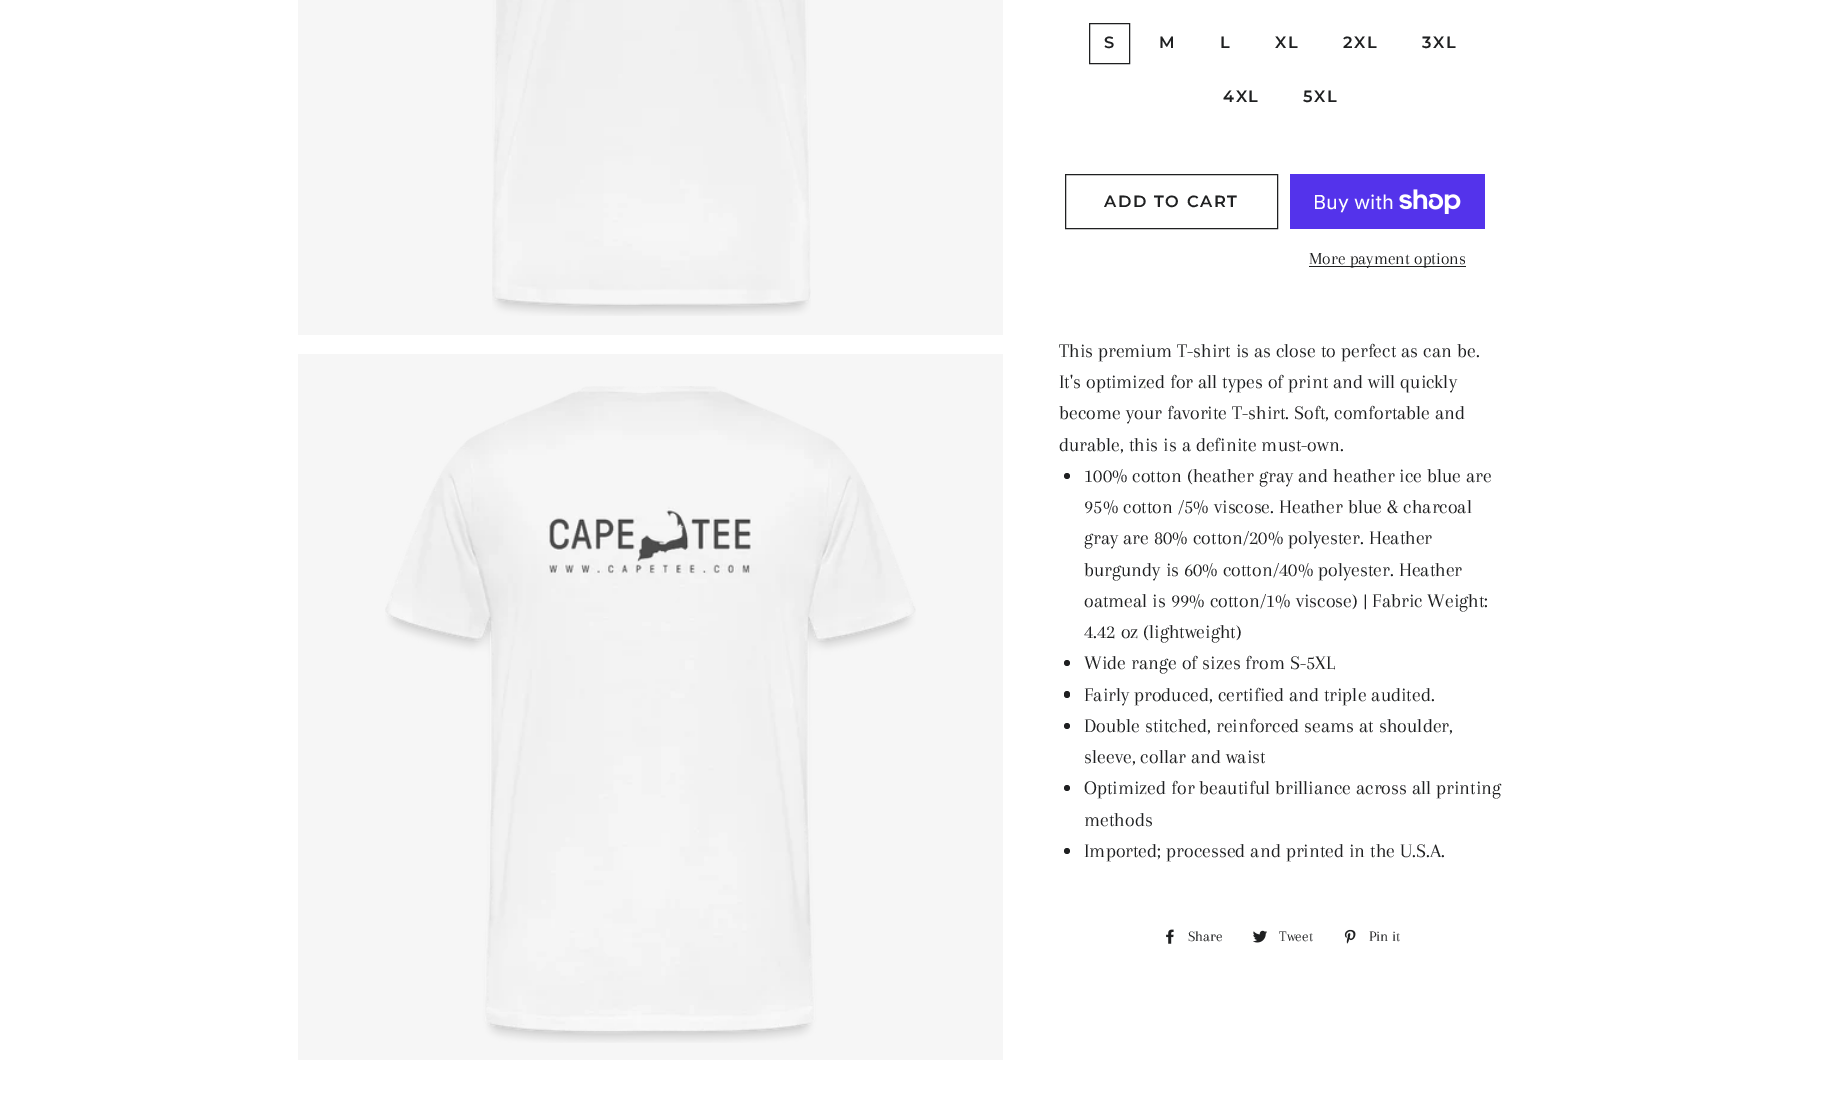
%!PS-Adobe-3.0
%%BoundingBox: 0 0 1831 1098
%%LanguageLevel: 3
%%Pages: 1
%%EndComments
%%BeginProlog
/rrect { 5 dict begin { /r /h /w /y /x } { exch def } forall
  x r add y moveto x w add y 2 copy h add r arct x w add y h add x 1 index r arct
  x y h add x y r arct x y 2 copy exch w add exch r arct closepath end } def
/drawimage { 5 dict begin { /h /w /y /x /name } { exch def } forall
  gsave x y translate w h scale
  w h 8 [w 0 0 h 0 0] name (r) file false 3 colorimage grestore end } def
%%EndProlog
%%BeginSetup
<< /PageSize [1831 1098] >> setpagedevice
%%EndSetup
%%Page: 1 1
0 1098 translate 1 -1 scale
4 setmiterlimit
1 setgray
0 0 1831 1098 rectfill
0.965 setgray
298 0 705 335 rectfill
(images/1.raw) 492 0 319 316 drawimage
298 354 705 706 rectfill
(images/2.raw) 385 386 531 657 drawimage
0.122 0.125 0.129 setrgbcolor
1089.5 23.5 40 40 rectstroke
1065.5 174.5 212 54 rectstroke
0.329 0.2 0.922 setrgbcolor
1290 174 195 55 rectfill
(images/3.raw) 1399 189 62 25 drawimage
0.122 0.125 0.129 setrgbcolor
1309 266 157 1 rectfill
newpath 1067 476 3 0 360 arc closepath fill
newpath 1067 663 3 0 360 arc closepath fill
1064 691 6 7 3 rrect fill
newpath 1067 726 3 0 360 arc closepath fill
newpath 1067 788 3 0 360 arc closepath fill
newpath 1067 851 3 0 360 arc closepath fill
(images/4.raw) 1166 929 8 15 drawimage
(images/5.raw) 1253 930 14 13 drawimage
(images/6.raw) 1344 929 12 15 drawimage
/Montserrat-SemiBold [16.25 0 0 -16.25 0 0] selectfont
1104 48 moveto 1.6 0 (S) ashow
1159 48 moveto 1.6 0 (M) ashow
1220 48 moveto 1.6 0 (L) ashow
1275 48 moveto 1.6 0 (XL) ashow
1343 48 moveto 1.6 0 (2XL) ashow
1422 48 moveto 1.6 0 (3XL) ashow
1223 102 moveto 1.6 0 (4XL) ashow
1303 102 moveto 1.6 0 (5XL) ashow
1104 207 moveto 1.6 0 (ADD TO CART) ashow
/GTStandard-Regular [20 0 0 -20 0 0] selectfont
1 setgray
1313 209 moveto (Buy with) show
/Arapey-Regular [17.5 0 0 -17.5 0 0] selectfont
0.122 0.125 0.129 setrgbcolor
1309 264 moveto (More payment options) show
/Arapey-Regular [20 0 0 -20 0 0] selectfont
1059 357 moveto (This premium T-shirt is as close to perfect as can be.) show
1059 388 moveto (It's optimized for all types of print and will quickly) show
1059 419 moveto (become your favorite T-shirt. Soft, comfortable and) show
1059 451 moveto (durable, this is a definite must-own.) show
1084 482 moveto (100% cotton \(heather gray and heather ice blue are) show
1084 513 moveto (95% cotton /5% viscose. Heather blue & charcoal) show
1084 544 moveto (gray are 80% cotton/20% polyester. Heather) show
1084 576 moveto (burgundy is 60% cotton/40% polyester. Heather) show
1084 607 moveto (oatmeal is 99% cotton/1% viscose\) | Fabric Weight:) show
1084 638 moveto (4.42 oz \(lightweight\)) show
1084 669 moveto (Wide range of sizes from S-5XL) show
1084 701 moveto (Fairly produced, certified and triple audited.) show
1084 732 moveto (Double stitched, reinforced seams at shoulder,) show
1084 763 moveto (sleeve, collar and waist) show
1084 794 moveto (Optimized for beautiful brilliance across all printing) show
1084 826 moveto (methods) show
1084 857 moveto (Imported; processed and printed in the U.S.A.) show
/Arapey-Regular [15 0 0 -15 0 0] selectfont
1188 941 moveto (Share) show
1279 941 moveto (Tweet) show
1369 941 moveto (Pin it) show
showpage
%%EOF
